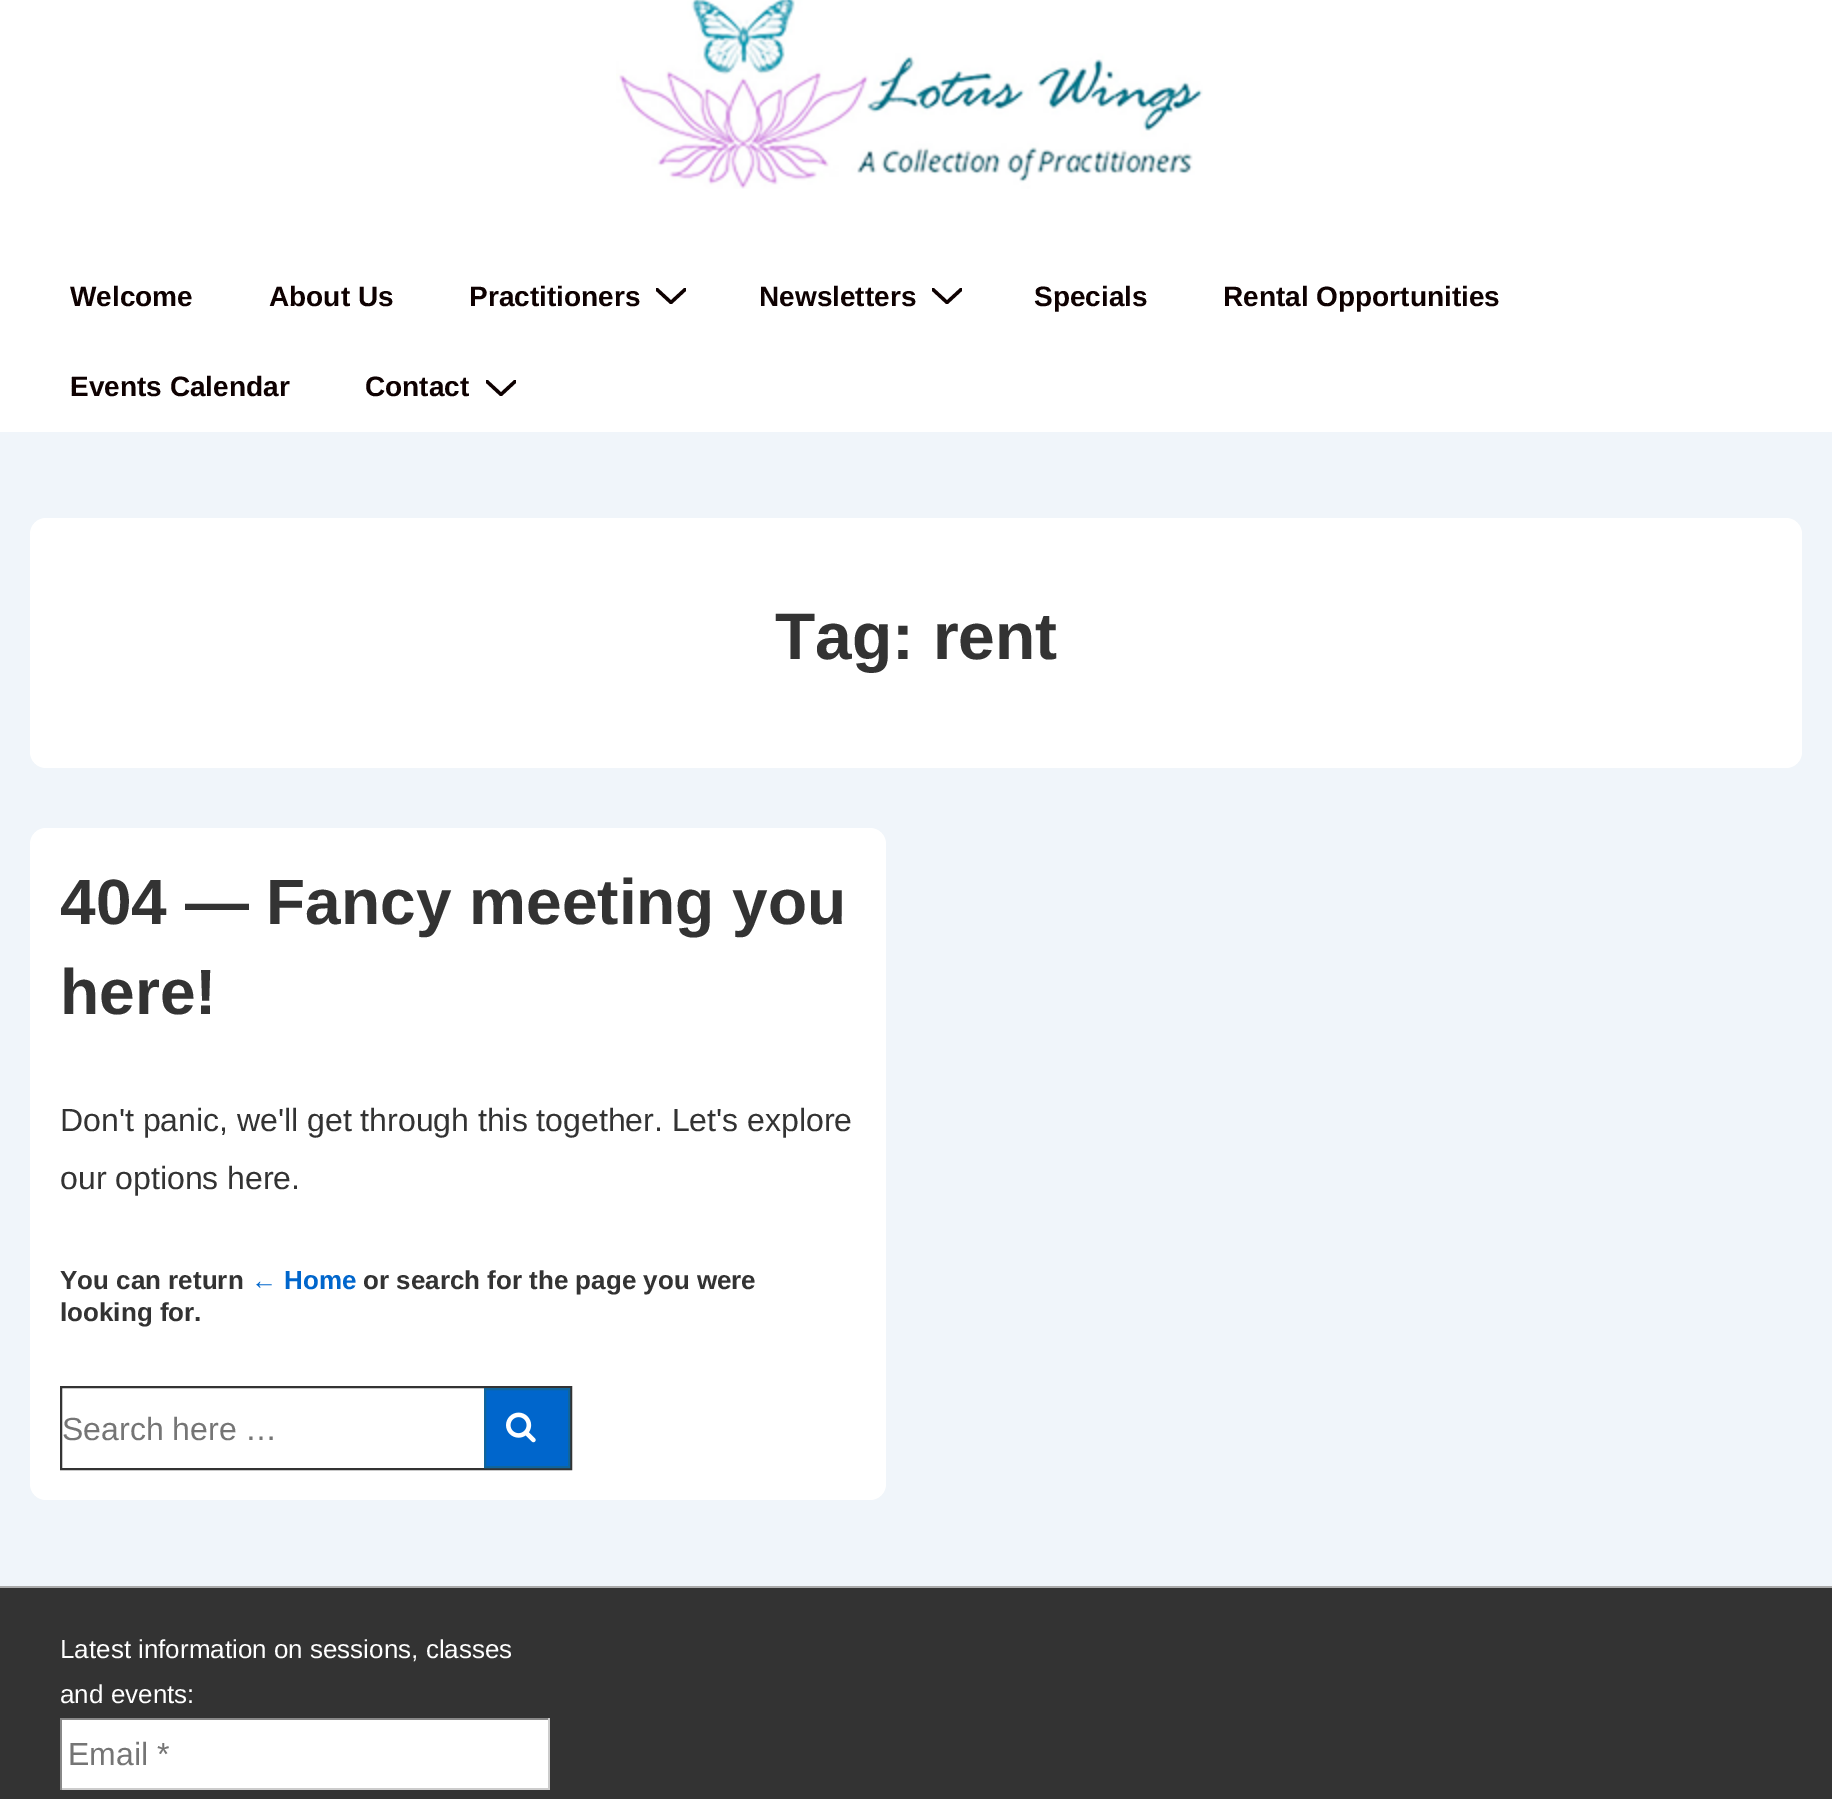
%!PS-Adobe-3.0
%%BoundingBox: 0 0 1832 1799
%%LanguageLevel: 3
%%Pages: 1
%%EndComments
%%BeginProlog
/rrect { 5 dict begin { /r /h /w /y /x } { exch def } forall
  x r add y moveto x w add y 2 copy h add r arct x w add y h add x 1 index r arct
  x y h add x y r arct x y 2 copy exch w add exch r arct closepath end } def
/drawimage { 5 dict begin { /h /w /y /x /name } { exch def } forall
  gsave x y translate w h scale
  w h 8 [w 0 0 h 0 0] name (r) file false 3 colorimage grestore end } def
%%EndProlog
%%BeginSetup
<< /PageSize [1832 1799] >> setpagedevice
%%EndSetup
%%Page: 1 1
0 1799 translate 1 -1 scale
4 setmiterlimit
0.941 0.961 0.98 setrgbcolor
0 0 1832 1799 rectfill
1 setgray
0 0 1832 432 rectfill
(images/1.raw) 616 0 587 189 drawimage
gsave
656 288 30 16 rectclip
0.055 0.004 0.004 setrgbcolor
3.3 setlinewidth
1 setlinecap
newpath 657 289.5 moveto 671 302.5 lineto 685 289.5 lineto stroke
grestore
gsave
932 288 30 16 rectclip
0.055 0.004 0.004 setrgbcolor
3.3 setlinewidth
1 setlinecap
newpath 933 289.5 moveto 947 302.5 lineto 961 289.5 lineto stroke
grestore
gsave
486 380 30 16 rectclip
0.055 0.004 0.004 setrgbcolor
3.3 setlinewidth
1 setlinecap
newpath 487 381.5 moveto 501 394.5 lineto 515 381.5 lineto stroke
grestore
30 518 1772 250 16 rrect fill
30 828 856 672 16 rrect fill
0.2 setgray
2 setlinewidth
61 1387 510 82 rectstroke
0 0.4 0.8 setrgbcolor
newpath 485 1389 moveto 569 1389 lineto 569 1467 lineto 485 1467 lineto closepath gsave fill grestore
0.063 0.396 0.612 setrgbcolor
stroke
(images/2.raw) 506 1412 30 31 drawimage
0.2 setgray
0 1588 1832 211 rectfill
0.667 setgray
0 1586 1832 2 rectfill
1 setgray
62 1720 486 68 rectfill
0.533 setgray
60 1718 490 2 rectfill
0.8 setgray
548 1718 2 72 rectfill
60 1788 490 2 rectfill
0.533 setgray
60 1718 2 72 rectfill
/LiberationSans-Bold [28 0 0 -28 0 0] selectfont
0.055 0.004 0.004 setrgbcolor
70 306 moveto (Welcome) show
269 306 moveto (About Us) show
469 306 moveto (Practitioners) show
759 306 moveto (Newsletters) show
1034 306 moveto (Specials) show
1223 306 moveto (Rental Opportunities) show
70 396 moveto (Events Calendar) show
365 396 moveto (Contact) show
/LiberationSans-Bold [66 0 0 -66 0 0] selectfont
0.2 setgray
775 659 moveto (Tag: rent) show
/LiberationSans-Bold [64 0 0 -64 0 0] selectfont
60 924 moveto (404 — Fancy meeting you) show
60 1014 moveto (here!) show
/LiberationSans-Regular [32 0 0 -32 0 0] selectfont
60 1131 moveto (Don't panic, we'll get through this together. Let's explore) show
60 1189 moveto (our options here.) show
/LiberationSans-Bold [26 0 0 -26 0 0] selectfont
60 1289 moveto (You can return) show
0 0.4 0.8 setrgbcolor
251 1289 moveto (← Home) show
0.2 setgray
363 1289 moveto (or search for the page you were) show
60 1321 moveto (looking for.) show
/LiberationSans-Regular [32 0 0 -32 0 0] selectfont
0.459 setgray
62 1440 moveto (Search here …) show
/LiberationSans-Regular [26 0 0 -26 0 0] selectfont
1 setgray
60 1658 moveto (Latest information on sessions, classes) show
60 1703 moveto (and events:) show
/LiberationSans-Regular [32 0 0 -32 0 0] selectfont
0.459 setgray
68 1765 moveto (Email *) show
showpage
%%EOF
